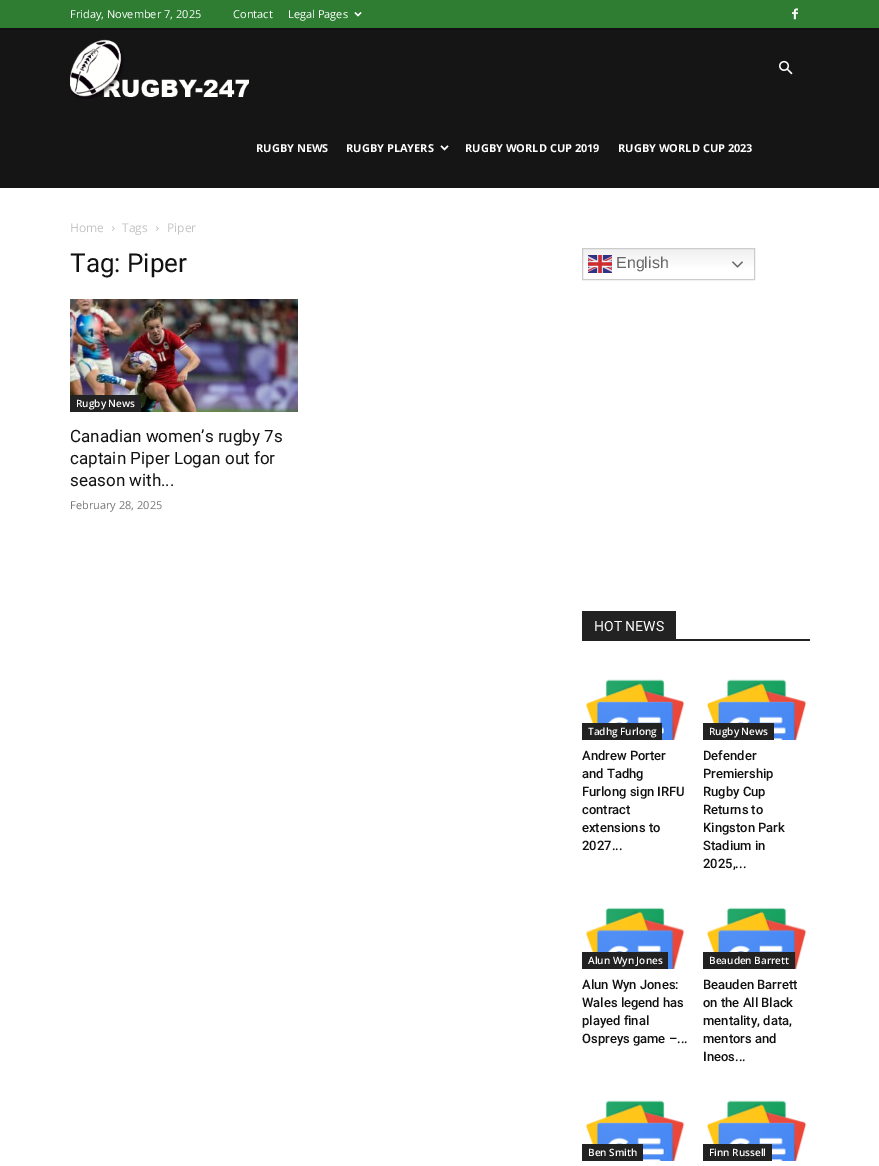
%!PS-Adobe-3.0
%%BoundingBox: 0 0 879 1166
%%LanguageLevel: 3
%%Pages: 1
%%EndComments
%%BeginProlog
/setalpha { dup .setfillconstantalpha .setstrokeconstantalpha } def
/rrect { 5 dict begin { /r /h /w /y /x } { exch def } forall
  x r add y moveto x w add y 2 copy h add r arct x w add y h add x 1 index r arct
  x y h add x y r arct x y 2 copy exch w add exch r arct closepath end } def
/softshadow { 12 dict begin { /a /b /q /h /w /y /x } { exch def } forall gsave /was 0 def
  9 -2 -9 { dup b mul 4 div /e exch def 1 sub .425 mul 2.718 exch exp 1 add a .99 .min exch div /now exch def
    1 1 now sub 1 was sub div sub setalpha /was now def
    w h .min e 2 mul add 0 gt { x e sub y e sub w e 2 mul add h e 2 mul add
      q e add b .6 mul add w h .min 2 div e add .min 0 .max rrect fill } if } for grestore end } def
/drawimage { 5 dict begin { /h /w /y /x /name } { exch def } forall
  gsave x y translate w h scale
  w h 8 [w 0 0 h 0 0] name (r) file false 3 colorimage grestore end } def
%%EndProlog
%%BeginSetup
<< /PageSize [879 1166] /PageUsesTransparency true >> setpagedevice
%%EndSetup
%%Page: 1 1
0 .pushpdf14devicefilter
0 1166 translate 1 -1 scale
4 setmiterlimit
1 setgray
0 0 879 1166 rectfill
0.082 setgray
0 28 879 160 rectfill
0 setgray
0 0 879 28 0 2.5 0.6 softshadow
0.18 0.49 0.196 setrgbcolor
0 0 879 28 rectfill
(images/1.raw) 354 12 8 5 drawimage
(images/2.raw) 792 8 6 12 drawimage
(images/3.raw) 779 60 14 15 drawimage
(images/4.raw) 70 39 179 60 drawimage
(images/5.raw) 440 145 9 6 drawimage
(images/6.raw) 112 226 3 5 drawimage
(images/6.raw) 156 226 3 5 drawimage
(images/7.raw) 70 299 228 113 drawimage
0.133 setgray
70 395 71 17 rectfill
gsave newpath 583 249 moveto 754 249 lineto 754 267 lineto 583 267 lineto closepath clip newpath
<< /ShadingType 2 /ColorSpace /DeviceRGB /Coords [669 248 669 280] /Extend [true true] /Function << /FunctionType 3 /Domain [0 1] /Functions [<< /FunctionType 2 /Domain [0 1] /C0 [0.937 0.937 0.937] /C1 [1 1 1] /N 1 >> << /FunctionType 2 /Domain [0 1] /C0 [1 1 1] /C1 [1 1 1] /N 1 >>] /Bounds [0.7] /Encode [0 1 0 1] >> >> shfill grestore
0.8 setgray
582.5 248.5 172 31 rectstroke
(images/8.raw) 588 255 24 18 drawimage
(images/9.raw) 732 261 11 7 drawimage
0.133 setgray
582 639 228 2 rectfill
582 611 94 28 rectfill
(images/10.raw) 585 679 100 61 drawimage
582 723 80 17 rectfill
(images/11.raw) 706 679 101 61 drawimage
703 723 71 17 rectfill
(images/12.raw) 585 907 100 62 drawimage
582 952 86 17 rectfill
(images/13.raw) 706 907 101 62 drawimage
703 952 92 17 rectfill
(images/10.raw) 585 1100 100 61 drawimage
582 1144 61 17 rectfill
(images/11.raw) 706 1100 101 61 drawimage
703 1144 69 17 rectfill
/OpenSans-Regular [11 0 0 -11 0 0] selectfont
1 setgray
70 18 moveto (Friday, November 7, 2025) show
233 18 moveto (Contact) show
288 18 moveto (Legal Pages) show
/OpenSans-Bold [11 0 0 -11 0 0] selectfont
256 152 moveto (RUGBY NEWS) show
346 152 moveto (RUGBY PLAYERS) show
465 152 moveto (RUGBY WORLD CUP 2019) show
618 152 moveto (RUGBY WORLD CUP 2023) show
/OpenSans-Regular [12 0 0 -12 0 0] selectfont
0.765 setgray
70 232 moveto (Home) show
122 232 moveto (Tags) show
167 232 moveto (Piper) show
/Roboto-Regular [26 0 0 -26 0 0] selectfont
0.067 setgray
70 272 moveto (Tag: Piper) show
/OpenSans-SemiBold [10 0 0 -10 0 0] selectfont
1 setgray
76 407 moveto (Rugby News) show
/Roboto-Regular [17 0 0 -17 0 0] selectfont
0.067 setgray
70 442 moveto (Canadian women’s rugby 7s) show
70 464 moveto (captain Piper Logan out for) show
70 486 moveto (season with...) show
/OpenSans-Regular [11 0 0 -11 0 0] selectfont
0.463 setgray
70 509 moveto (February 28, 2025) show
/LiberationSans-Regular [16 0 0 -16 0 0] selectfont
0.4 setgray
616 268 moveto (English) show
/Roboto-Regular [14 0 0 -14 0 0] selectfont
1 setgray
594 631 moveto (HOT NEWS) show
/OpenSans-SemiBold [10 0 0 -10 0 0] selectfont
588 735 moveto (Tadhg Furlong) show
/Roboto-Medium [13 0 0 -13 0 0] selectfont
0.067 setgray
582 760 moveto (Andrew Porter) show
582 778 moveto (and Tadhg) show
582 796 moveto (Furlong sign IRFU) show
582 814 moveto (contract) show
582 832 moveto (extensions to) show
582 850 moveto (2027...) show
/OpenSans-SemiBold [10 0 0 -10 0 0] selectfont
1 setgray
709 735 moveto (Rugby News) show
/Roboto-Medium [13 0 0 -13 0 0] selectfont
0.067 setgray
703 760 moveto (Defender) show
703 778 moveto (Premiership) show
703 796 moveto (Rugby Cup) show
703 814 moveto (Returns to) show
703 832 moveto (Kingston Park) show
703 850 moveto (Stadium in) show
703 868 moveto (2025,...) show
/OpenSans-SemiBold [10 0 0 -10 0 0] selectfont
1 setgray
588 964 moveto (Alun Wyn Jones) show
/Roboto-Medium [13 0 0 -13 0 0] selectfont
0.067 setgray
582 989 moveto (Alun Wyn Jones:) show
582 1007 moveto (Wales legend has) show
582 1025 moveto (played final) show
582 1043 moveto (Ospreys game –...) show
/OpenSans-SemiBold [10 0 0 -10 0 0] selectfont
1 setgray
709 964 moveto (Beauden Barrett) show
/Roboto-Medium [13 0 0 -13 0 0] selectfont
0.067 setgray
703 989 moveto (Beauden Barrett) show
703 1007 moveto (on the All Black) show
703 1025 moveto (mentality, data,) show
703 1043 moveto (mentors and) show
703 1061 moveto (Ineos...) show
/OpenSans-SemiBold [10 0 0 -10 0 0] selectfont
1 setgray
588 1156 moveto (Ben Smith) show
709 1156 moveto (Finn Russell) show
.poppdf14devicefilter showpage
%%EOF
